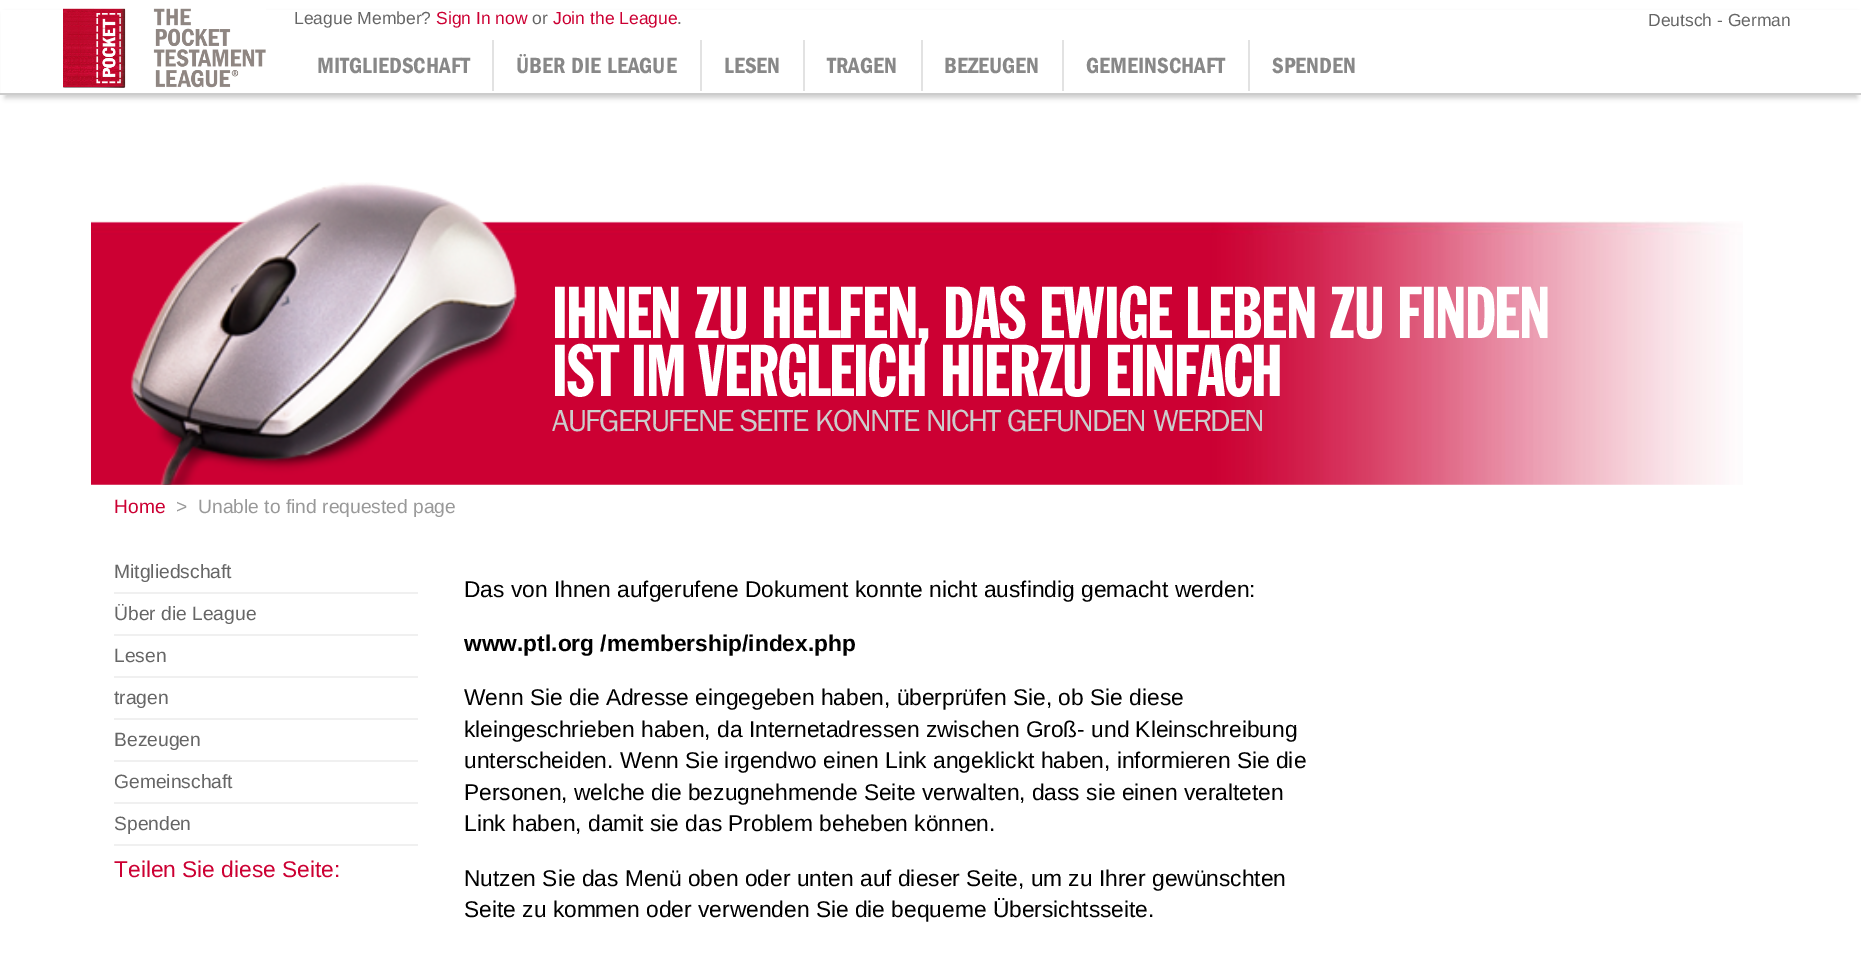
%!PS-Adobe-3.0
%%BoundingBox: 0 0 1861 956
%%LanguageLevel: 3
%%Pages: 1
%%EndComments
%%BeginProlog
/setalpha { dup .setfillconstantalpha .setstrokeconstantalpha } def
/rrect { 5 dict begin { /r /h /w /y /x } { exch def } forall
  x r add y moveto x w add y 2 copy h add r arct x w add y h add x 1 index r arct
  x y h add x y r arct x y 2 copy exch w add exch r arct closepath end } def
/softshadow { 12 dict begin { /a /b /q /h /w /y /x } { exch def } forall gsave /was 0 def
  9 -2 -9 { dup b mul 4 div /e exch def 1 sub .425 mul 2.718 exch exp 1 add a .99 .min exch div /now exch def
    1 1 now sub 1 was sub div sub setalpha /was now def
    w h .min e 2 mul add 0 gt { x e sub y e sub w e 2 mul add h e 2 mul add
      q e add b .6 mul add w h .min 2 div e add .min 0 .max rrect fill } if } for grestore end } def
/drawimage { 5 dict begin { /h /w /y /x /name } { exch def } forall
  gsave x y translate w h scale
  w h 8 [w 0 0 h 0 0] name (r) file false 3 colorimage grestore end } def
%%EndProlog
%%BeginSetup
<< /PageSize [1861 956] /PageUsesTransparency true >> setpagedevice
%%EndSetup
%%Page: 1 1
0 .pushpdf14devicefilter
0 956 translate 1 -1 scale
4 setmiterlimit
1 setgray
0 0 1861 956 rectfill
0.8 setgray
5 14 1852 84 0 2.5 1 softshadow
1 setgray
1 10 1860 83 rectfill
0.8 setgray
0 93 1861 2 rectfill
(images/1.raw) 63 8 203 80 drawimage
0.886 setgray
492 40 2 51 rectfill
700 40 2 51 rectfill
803 40 2 51 rectfill
921 40 2 51 rectfill
1062 40 2 51 rectfill
1248 40 2 51 rectfill
(images/2.raw) 91 221 1652 264 drawimage
(images/3.raw) 130 182 387 303 drawimage
0.941 setgray
114 592 304 2 rectfill
114 634 304 2 rectfill
114 676 304 2 rectfill
114 718 304 2 rectfill
114 760 304 2 rectfill
114 802 304 2 rectfill
114 844 304 2 rectfill
/LiberationSans-Regular [17.5 0 0 -17.5 0 0] selectfont
0.4 setgray
294 24 moveto (League Member?) show
0.8 0 0.2 setrgbcolor
436 24 moveto (Sign In now) show
0.4 setgray
532 24 moveto (or) show
0.8 0 0.2 setrgbcolor
553 24 moveto (Join the League) show
0.4 setgray
677 24 moveto (.) show
1648 26 moveto (Deutsch - German) show
/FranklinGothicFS-SemiBold [22.75 0 0 -22.75 0 0] selectfont
0.533 setgray
317 73 moveto (MITGLIEDSCHAFT) show
516 73 moveto 1.75 0 32 (ÜBER DIE LEAGUE) widthshow
724 73 moveto (LESEN) show
827 73 moveto (TRAGEN) show
944 73 moveto (BEZEUGEN) show
1086 73 moveto (GEMEINSCHAFT) show
1272 73 moveto (SPENDEN) show
/FranklinGothicFS-Medium [77 0 0 -77 0 0] selectfont
1 setgray
552 338 moveto 3.5 0 32 -1.75 0 (IHNEN ZU HELFEN, DAS EWIGE LEBEN ZU FINDEN) awidthshow
552 396 moveto 3.5 0 32 -1.75 0 (IST IM VERGLEICH HIERZU EINFACH) awidthshow
/FranklinGothicFS-Regular [31.5 0 0 -31.5 0 0] selectfont
0.8 setgray
552 431 moveto 1.75 0 32 -1.75 0 (AUFGERUFENE SEITE KONNTE NICHT GEFUNDEN WERDEN) awidthshow
/LiberationSans-Regular [19.25 0 0 -19.25 0 0] selectfont
0.8 0 0.2 setrgbcolor
114 513 moveto (Home) show
0.6 setgray
176 513 moveto (>) show
198 513 moveto (Unable to find requested page) show
0.4 setgray
114 578 moveto (Mitgliedschaft) show
114 620 moveto (Über die League) show
114 662 moveto (Lesen) show
114 704 moveto (tragen) show
114 746 moveto (Bezeugen) show
114 788 moveto (Gemeinschaft) show
114 830 moveto (Spenden) show
/LiberationSans-Regular [22.75 0 0 -22.75 0 0] selectfont
0.8 0 0.2 setrgbcolor
114 877 moveto (Teilen Sie diese Seite:) show
0 setgray
464 597 moveto (Das von Ihnen aufgerufene Dokument konnte nicht ausfindig gemacht werden:) show
/LiberationSans-Bold [22.75 0 0 -22.75 0 0] selectfont
464 651 moveto (www.ptl.org /membership/index.php) show
/LiberationSans-Regular [22.75 0 0 -22.75 0 0] selectfont
464 705 moveto (Wenn Sie die Adresse eingegeben haben, überprüfen Sie, ob Sie diese) show
464 737 moveto (kleingeschrieben haben, da Internetadressen zwischen Groß- und Kleinschreibung) show
464 768 moveto (unterscheiden. Wenn Sie irgendwo einen Link angeklickt haben, informieren Sie die) show
464 800 moveto (Personen, welche die bezugnehmende Seite verwalten, dass sie einen veralteten) show
464 831 moveto (Link haben, damit sie das Problem beheben können.) show
464 886 moveto (Nutzen Sie das Menü oben oder unten auf dieser Seite, um zu Ihrer gewünschten) show
464 917 moveto (Seite zu kommen oder verwenden Sie die bequeme Übersichtsseite.) show
.poppdf14devicefilter showpage
%%EOF
